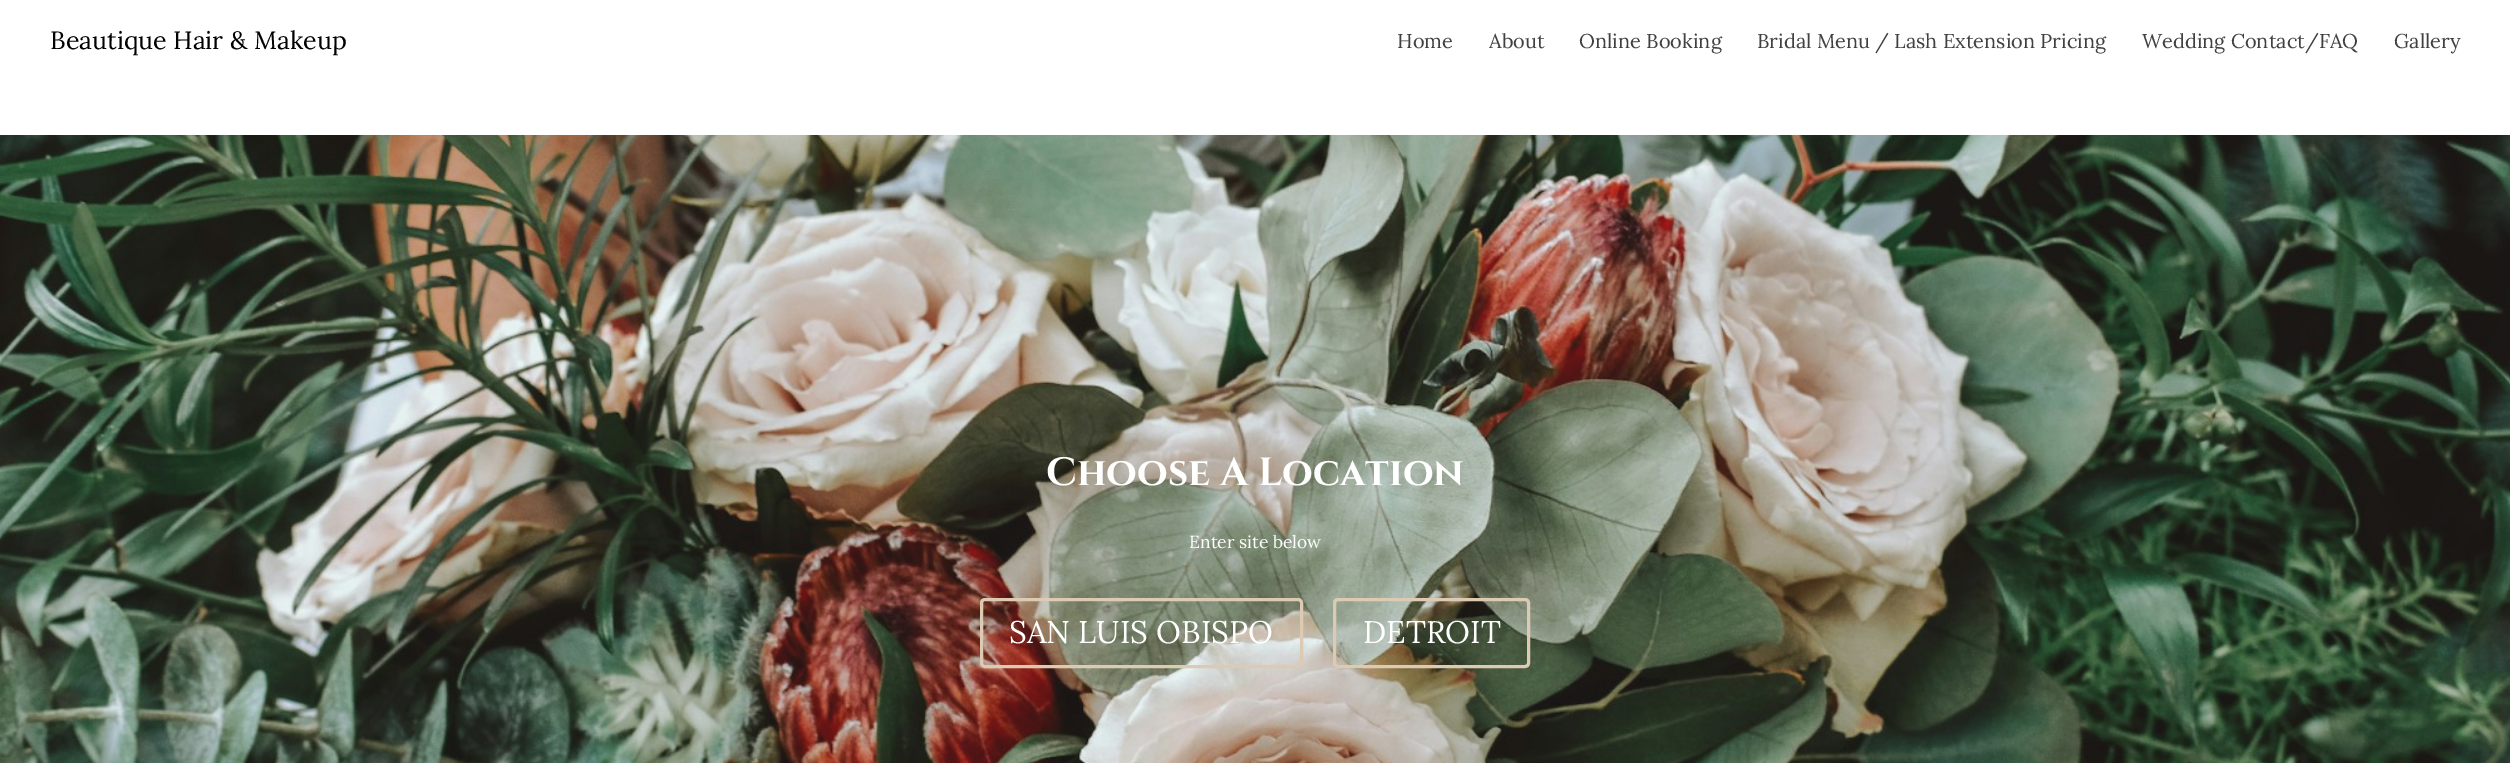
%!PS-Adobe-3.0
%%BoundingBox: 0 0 2510 763
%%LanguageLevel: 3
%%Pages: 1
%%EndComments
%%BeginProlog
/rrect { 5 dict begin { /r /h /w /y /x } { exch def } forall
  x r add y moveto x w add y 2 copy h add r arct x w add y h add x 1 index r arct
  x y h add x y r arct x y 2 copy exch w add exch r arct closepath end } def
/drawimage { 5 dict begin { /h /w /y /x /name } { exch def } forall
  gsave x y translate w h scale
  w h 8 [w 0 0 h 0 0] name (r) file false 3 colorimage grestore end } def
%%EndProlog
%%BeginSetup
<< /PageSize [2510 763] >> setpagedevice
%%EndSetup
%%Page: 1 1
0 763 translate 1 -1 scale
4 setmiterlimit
1 setgray
0 0 2510 763 rectfill
(images/1.raw) 0 135 2510 628 drawimage
0.867 0.792 0.702 setrgbcolor
3 setlinewidth
981.5 599.5 320 67 3.5 rrect stroke
1334.5 599.5 194 67 3.5 rrect stroke
/Lora-Regular [25 0 0 -25 0 0] selectfont
0 setgray
50 49 moveto (Beautique Hair & Makeup) show
/Lora-Regular [20 0 0 -20 0 0] selectfont
0.251 setgray
1397 48 moveto (Home) show
1489 48 moveto (About) show
1579 48 moveto (Online Booking) show
1757 48 moveto (Bridal Menu / Lash Extension Pricing) show
2142 48 moveto (Wedding Contact/FAQ) show
2394 48 moveto (Gallery) show
/Cinzel-Bold [39.4 0 0 -39.4 0 0] selectfont
1 setgray
1046 485 moveto (Choose A Location) show
/Lora-Regular [17.5 0 0 -17.5 0 0] selectfont
1189 548 moveto (Enter site below) show
/Lora-Regular [31.25 0 0 -31.25 0 0] selectfont
1009 643 moveto (SAN LUIS OBISPO) show
1363 643 moveto (DETROIT) show
showpage
%%EOF
